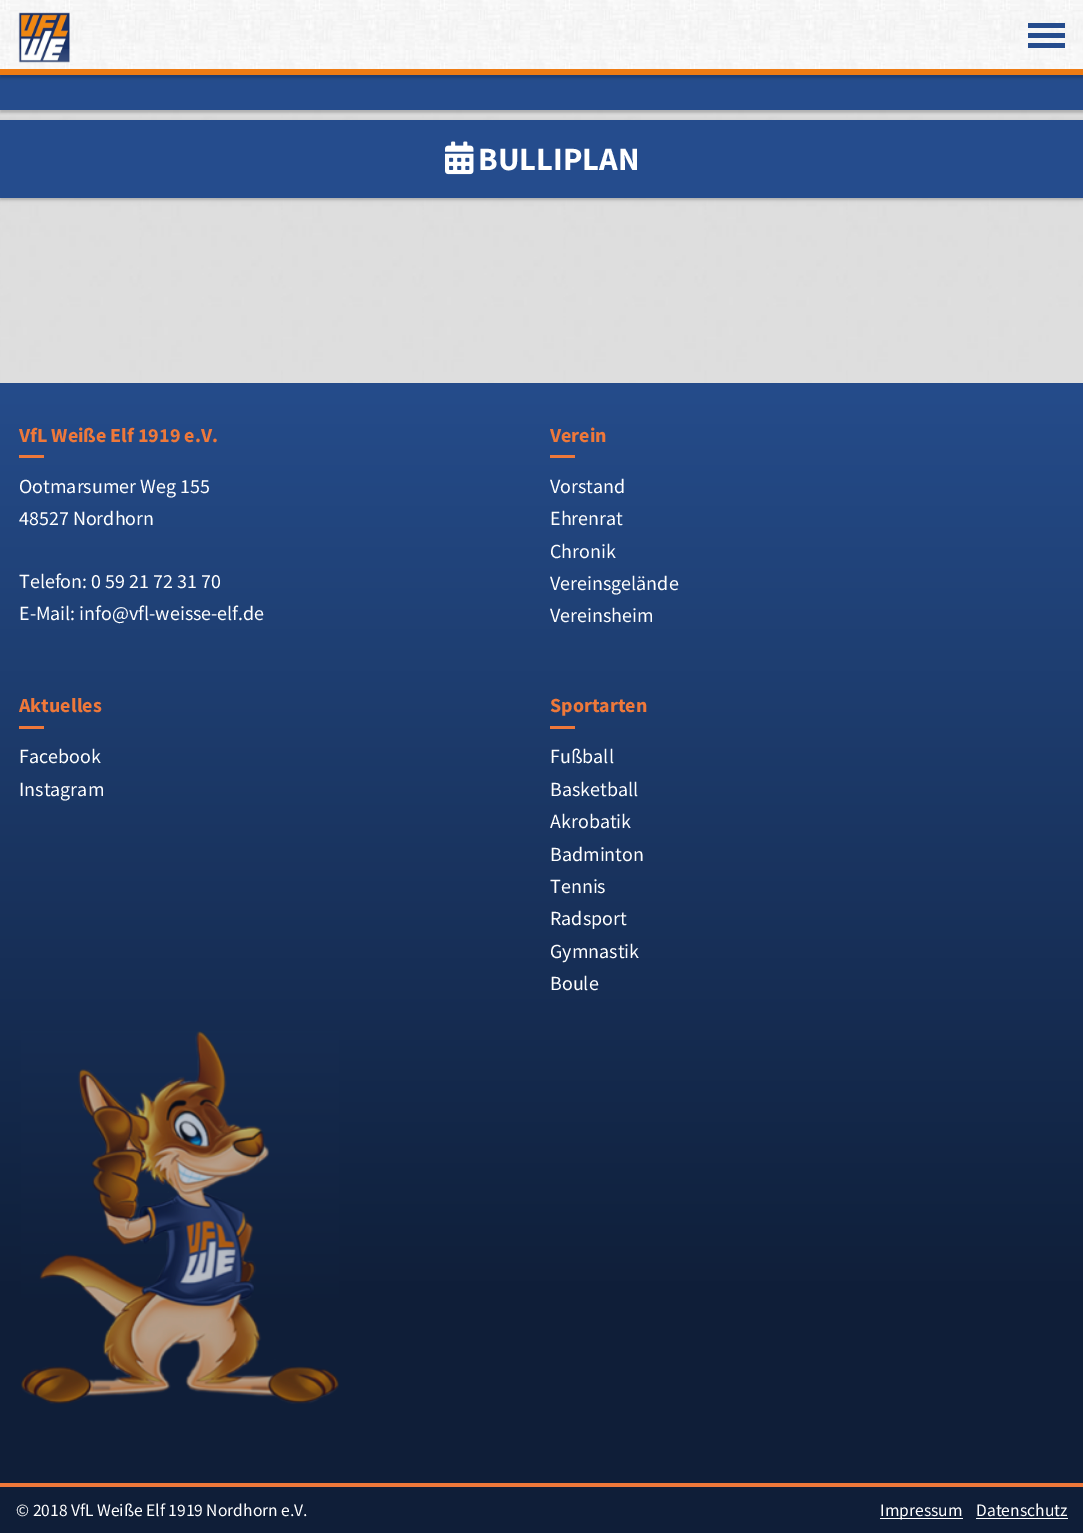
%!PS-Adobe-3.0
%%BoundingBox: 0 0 1083 1533
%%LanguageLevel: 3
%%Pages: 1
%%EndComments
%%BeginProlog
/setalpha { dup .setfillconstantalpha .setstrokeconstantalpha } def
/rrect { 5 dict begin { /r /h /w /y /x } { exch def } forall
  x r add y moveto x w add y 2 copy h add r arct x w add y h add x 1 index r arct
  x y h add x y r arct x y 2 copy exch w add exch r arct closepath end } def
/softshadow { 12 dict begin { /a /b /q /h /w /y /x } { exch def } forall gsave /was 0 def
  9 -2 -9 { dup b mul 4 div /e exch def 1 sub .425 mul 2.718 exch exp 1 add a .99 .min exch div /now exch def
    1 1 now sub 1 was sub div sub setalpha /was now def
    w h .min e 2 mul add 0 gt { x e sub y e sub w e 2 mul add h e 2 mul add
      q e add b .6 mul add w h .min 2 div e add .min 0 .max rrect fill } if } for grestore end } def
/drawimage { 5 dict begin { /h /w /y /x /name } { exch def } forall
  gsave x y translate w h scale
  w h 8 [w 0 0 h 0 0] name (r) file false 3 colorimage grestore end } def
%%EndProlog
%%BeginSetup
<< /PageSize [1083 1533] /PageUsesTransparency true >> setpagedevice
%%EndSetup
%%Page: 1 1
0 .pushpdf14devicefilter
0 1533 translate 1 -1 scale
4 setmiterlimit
1 setgray
0 0 1083 1533 rectfill
(images/1.raw) 0 110 1083 273 drawimage
0.1 setalpha
0 setgray
0 110 1083 273 rectfill
1 setalpha
0 35 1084 78 0 1 0.14 softshadow
0 34 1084 77 0 3 0.12 softshadow
0.145 0.298 0.553 setrgbcolor
0 75 1083 35 rectfill
0 setgray
0 3 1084 75 0 1 0.14 softshadow
0 1 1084 75 0 3 0.12 softshadow
(images/2.raw) 0 0 1083 69 drawimage
0.937 0.486 0.075 setrgbcolor
0 69 1083 6 rectfill
(images/3.raw) 18 12 52 51 drawimage
0.145 0.298 0.553 setrgbcolor
1028 33 37 5 rectfill
1028 23 37 5 rectfill
1028 43 37 5 rectfill
0 setgray
0 123 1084 77 0 1 0.14 softshadow
0 121 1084 78 0 3 0.12 softshadow
0.145 0.298 0.553 setrgbcolor
0 120 1083 78 rectfill
(images/4.raw) 445 141 29 34 drawimage
gsave newpath 0 383 moveto 1083 383 lineto 1083 1533 lineto 0 1533 lineto closepath clip newpath
<< /ShadingType 2 /ColorSpace /DeviceRGB /Coords [542 382 542 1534] /Extend [true true] /Function << /FunctionType 3 /Domain [0 1] /Functions [<< /FunctionType 2 /Domain [0 1] /C0 [0.145 0.298 0.545] /C1 [0.059 0.118 0.22] /N 1 >> << /FunctionType 2 /Domain [0 1] /C0 [0.059 0.118 0.22] /C1 [0.059 0.118 0.22] /N 1 >>] /Bounds [0.8] /Encode [0 1 0 1] >> >> shfill grestore
0.933 0.471 0.227 setrgbcolor
19 455 25 3 rectfill
550 455 25 3 rectfill
19 726 25 3 rectfill
550 726 25 3 rectfill
(images/5.raw) 21 1031 318 373 drawimage
0 1483 1083 4 rectfill
1 setgray
880 1518 83 1 rectfill
976 1518 92 1 rectfill
/SourceSansPro-Bold [32.5 0 0 -32.5 0 0] selectfont
478 170 moveto (BULLIPLAN) show
/SourceSansPro-Bold [20 0 0 -20 0 0] selectfont
0.933 0.471 0.227 setrgbcolor
19 442 moveto (VfL Weiße Elf 1919 e.V.) show
/SourceSansPro-Regular [20 0 0 -20 0 0] selectfont
1 setgray
19 493 moveto (Ootmarsumer Weg 155) show
19 525 moveto (48527 Nordhorn) show
19 588 moveto (Telefon: 0 59 21 72 31 70) show
19 620 moveto (E-Mail: info@vfl-weisse-elf.de) show
/SourceSansPro-Bold [20 0 0 -20 0 0] selectfont
0.933 0.471 0.227 setrgbcolor
550 442 moveto (Verein) show
/SourceSansPro-Regular [20 0 0 -20 0 0] selectfont
1 setgray
550 493 moveto (Vorstand) show
550 525 moveto (Ehrenrat) show
550 558 moveto (Chronik) show
550 590 moveto (Vereinsgelände) show
550 622 moveto (Vereinsheim) show
/SourceSansPro-Bold [20 0 0 -20 0 0] selectfont
0.933 0.471 0.227 setrgbcolor
19 712 moveto (Aktuelles) show
/SourceSansPro-Regular [20 0 0 -20 0 0] selectfont
1 setgray
19 763 moveto (Facebook) show
19 796 moveto (Instagram) show
/SourceSansPro-Bold [20 0 0 -20 0 0] selectfont
0.933 0.471 0.227 setrgbcolor
550 712 moveto (Sportarten) show
/SourceSansPro-Regular [20 0 0 -20 0 0] selectfont
1 setgray
550 763 moveto (Fußball) show
550 796 moveto (Basketball) show
550 828 moveto (Akrobatik) show
550 861 moveto (Badminton) show
550 893 moveto (Tennis) show
550 925 moveto (Radsport) show
550 958 moveto (Gymnastik) show
550 990 moveto (Boule) show
/SourceSansPro-Regular [17.5 0 0 -17.5 0 0] selectfont
16 1516 moveto (© 2018 VfL Weiße Elf 1919 Nordhorn e.V.) show
880 1516 moveto (Impressum) show
976 1516 moveto (Datenschutz) show
.poppdf14devicefilter showpage
%%EOF
